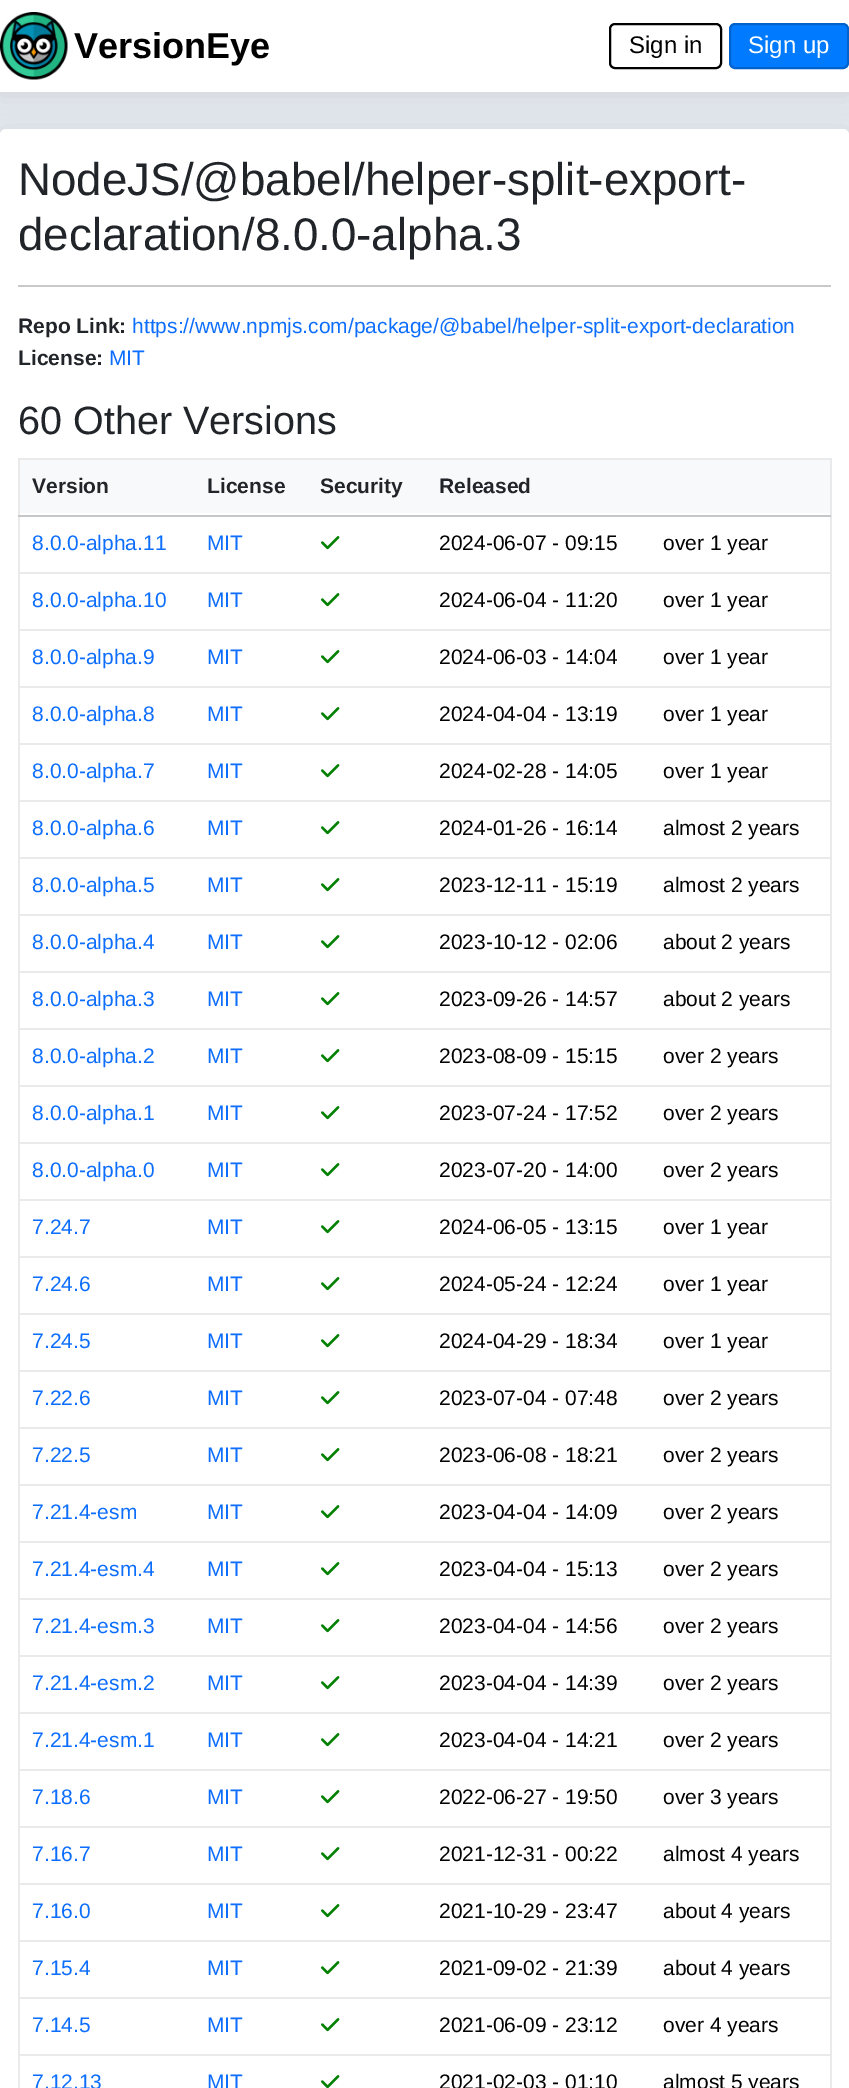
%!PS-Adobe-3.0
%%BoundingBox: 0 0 849 2088
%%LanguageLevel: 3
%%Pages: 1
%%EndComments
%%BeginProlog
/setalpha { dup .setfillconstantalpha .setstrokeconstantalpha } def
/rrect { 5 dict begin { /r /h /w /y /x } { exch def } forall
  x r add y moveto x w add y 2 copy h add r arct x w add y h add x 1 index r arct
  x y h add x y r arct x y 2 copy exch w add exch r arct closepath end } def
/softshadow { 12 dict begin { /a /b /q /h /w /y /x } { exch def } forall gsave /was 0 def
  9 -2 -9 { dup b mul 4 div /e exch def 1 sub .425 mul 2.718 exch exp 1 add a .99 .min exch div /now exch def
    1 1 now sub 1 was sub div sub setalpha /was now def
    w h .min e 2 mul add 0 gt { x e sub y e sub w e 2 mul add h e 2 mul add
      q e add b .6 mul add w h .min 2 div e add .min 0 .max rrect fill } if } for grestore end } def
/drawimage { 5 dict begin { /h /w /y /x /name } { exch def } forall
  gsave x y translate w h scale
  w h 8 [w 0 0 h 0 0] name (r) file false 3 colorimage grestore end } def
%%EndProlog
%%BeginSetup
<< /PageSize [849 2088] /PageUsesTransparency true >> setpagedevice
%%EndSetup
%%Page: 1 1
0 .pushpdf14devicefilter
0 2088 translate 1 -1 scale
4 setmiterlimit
0.89 0.91 0.933 setrgbcolor
0 0 849 2088 rectfill
0 setgray
0 3 849 92 0 12 0.07 softshadow
1 setgray
0 0 849 92 rectfill
(images/1.raw) 0 12 68 68 drawimage
0 setgray
2 setlinewidth
610 24 111 44 5 rrect stroke
0 0.482 1 setrgbcolor
730 24 118 44 5 rrect gsave fill grestore
0 0.384 0.8 setrgbcolor
stroke
0 setgray
0 132 849 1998 6 12 0.07 softshadow
1 setgray
0 129 849 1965 6 rrect fill
0.784 0.788 0.792 setrgbcolor
18 285 813 2 rectfill
0.918 setgray
18 458 813 2 rectfill
830 458 2 1630 rectfill
18 458 2 1630 rectfill
0.973 0.976 0.98 setrgbcolor
20 460 810 53 rectfill
0.776 0.78 0.784 setrgbcolor
18 515 813 2 rectfill
(images/2.raw) 321 536 19 14 drawimage
0.918 setgray
18 572 813 2 rectfill
(images/2.raw) 321 593 19 14 drawimage
18 629 813 2 rectfill
(images/2.raw) 321 650 19 14 drawimage
18 686 813 2 rectfill
(images/2.raw) 321 707 19 14 drawimage
18 743 813 2 rectfill
(images/2.raw) 321 764 19 14 drawimage
18 800 813 2 rectfill
(images/2.raw) 321 821 19 14 drawimage
18 857 813 2 rectfill
(images/2.raw) 321 878 19 14 drawimage
18 914 813 2 rectfill
(images/2.raw) 321 935 19 14 drawimage
18 971 813 2 rectfill
(images/2.raw) 321 992 19 14 drawimage
18 1028 813 2 rectfill
(images/2.raw) 321 1049 19 14 drawimage
18 1085 813 2 rectfill
(images/2.raw) 321 1106 19 14 drawimage
18 1142 813 2 rectfill
(images/2.raw) 321 1163 19 14 drawimage
18 1199 813 2 rectfill
(images/2.raw) 321 1220 19 14 drawimage
18 1256 813 2 rectfill
(images/2.raw) 321 1277 19 14 drawimage
18 1313 813 2 rectfill
(images/2.raw) 321 1334 19 14 drawimage
18 1370 813 2 rectfill
(images/2.raw) 321 1391 19 14 drawimage
18 1427 813 2 rectfill
(images/2.raw) 321 1448 19 14 drawimage
18 1484 813 2 rectfill
(images/2.raw) 321 1505 19 14 drawimage
18 1541 813 2 rectfill
(images/2.raw) 321 1562 19 14 drawimage
18 1598 813 2 rectfill
(images/2.raw) 321 1619 19 14 drawimage
18 1655 813 2 rectfill
(images/2.raw) 321 1676 19 14 drawimage
18 1712 813 2 rectfill
(images/2.raw) 321 1733 19 14 drawimage
18 1769 813 2 rectfill
(images/2.raw) 321 1790 19 14 drawimage
18 1826 813 2 rectfill
(images/2.raw) 321 1847 19 14 drawimage
18 1883 813 2 rectfill
(images/2.raw) 321 1904 19 14 drawimage
18 1940 813 2 rectfill
(images/2.raw) 321 1961 19 14 drawimage
18 1997 813 2 rectfill
(images/2.raw) 321 2018 19 14 drawimage
18 2054 813 2 rectfill
(images/3.raw) 321 2075 19 13 drawimage
/LiberationSans-Bold [36 0 0 -36 0 0] selectfont
0 setgray
74 58 moveto (VersionEye) show
/LiberationSans-Regular [24 0 0 -24 0 0] selectfont
629 53 moveto (Sign in) show
1 setgray
748 53 moveto (Sign up) show
/LiberationSans-Regular [45.75 0 0 -45.75 0 0] selectfont
0.129 0.145 0.161 setrgbcolor
18 195 moveto (NodeJS/@babel/helper-split-export-) show
18 250 moveto (declaration/8.0.0-alpha.3) show
/LiberationSans-Bold [21 0 0 -21 0 0] selectfont
18 333 moveto (Repo Link:) show
/LiberationSans-Regular [21 0 0 -21 0 0] selectfont
0.051 0.431 0.992 setrgbcolor
132 333 moveto (https://www.npmjs.com/package/@babel/helper-split-export-declaration) show
/LiberationSans-Bold [21 0 0 -21 0 0] selectfont
0.129 0.145 0.161 setrgbcolor
18 365 moveto (License:) show
/LiberationSans-Regular [21 0 0 -21 0 0] selectfont
0.051 0.431 0.992 setrgbcolor
109 365 moveto (MIT) show
/LiberationSans-Regular [39.5 0 0 -39.5 0 0] selectfont
0.129 0.145 0.161 setrgbcolor
18 434 moveto (60 Other Versions) show
/LiberationSans-Bold [21 0 0 -21 0 0] selectfont
32 493 moveto (Version) show
207 493 moveto (License) show
320 493 moveto (Security) show
439 493 moveto (Released) show
/LiberationSans-Regular [21 0 0 -21 0 0] selectfont
0.051 0.431 0.992 setrgbcolor
32 550 moveto (8.0.0-alpha.11) show
207 550 moveto (MIT) show
0 setgray
439 550 moveto (2024-06-07 - 09:15) show
663 550 moveto (over 1 year) show
0.051 0.431 0.992 setrgbcolor
32 607 moveto (8.0.0-alpha.10) show
207 607 moveto (MIT) show
0 setgray
439 607 moveto (2024-06-04 - 11:20) show
663 607 moveto (over 1 year) show
0.051 0.431 0.992 setrgbcolor
32 664 moveto (8.0.0-alpha.9) show
207 664 moveto (MIT) show
0 setgray
439 664 moveto (2024-06-03 - 14:04) show
663 664 moveto (over 1 year) show
0.051 0.431 0.992 setrgbcolor
32 721 moveto (8.0.0-alpha.8) show
207 721 moveto (MIT) show
0 setgray
439 721 moveto (2024-04-04 - 13:19) show
663 721 moveto (over 1 year) show
0.051 0.431 0.992 setrgbcolor
32 778 moveto (8.0.0-alpha.7) show
207 778 moveto (MIT) show
0 setgray
439 778 moveto (2024-02-28 - 14:05) show
663 778 moveto (over 1 year) show
0.051 0.431 0.992 setrgbcolor
32 835 moveto (8.0.0-alpha.6) show
207 835 moveto (MIT) show
0 setgray
439 835 moveto (2024-01-26 - 16:14) show
663 835 moveto (almost 2 years) show
0.051 0.431 0.992 setrgbcolor
32 892 moveto (8.0.0-alpha.5) show
207 892 moveto (MIT) show
0 setgray
439 892 moveto (2023-12-11 - 15:19) show
663 892 moveto (almost 2 years) show
0.051 0.431 0.992 setrgbcolor
32 949 moveto (8.0.0-alpha.4) show
207 949 moveto (MIT) show
0 setgray
439 949 moveto (2023-10-12 - 02:06) show
663 949 moveto (about 2 years) show
0.051 0.431 0.992 setrgbcolor
32 1006 moveto (8.0.0-alpha.3) show
207 1006 moveto (MIT) show
0 setgray
439 1006 moveto (2023-09-26 - 14:57) show
663 1006 moveto (about 2 years) show
0.051 0.431 0.992 setrgbcolor
32 1063 moveto (8.0.0-alpha.2) show
207 1063 moveto (MIT) show
0 setgray
439 1063 moveto (2023-08-09 - 15:15) show
663 1063 moveto (over 2 years) show
0.051 0.431 0.992 setrgbcolor
32 1120 moveto (8.0.0-alpha.1) show
207 1120 moveto (MIT) show
0 setgray
439 1120 moveto (2023-07-24 - 17:52) show
663 1120 moveto (over 2 years) show
0.051 0.431 0.992 setrgbcolor
32 1177 moveto (8.0.0-alpha.0) show
207 1177 moveto (MIT) show
0 setgray
439 1177 moveto (2023-07-20 - 14:00) show
663 1177 moveto (over 2 years) show
0.051 0.431 0.992 setrgbcolor
32 1234 moveto (7.24.7) show
207 1234 moveto (MIT) show
0 setgray
439 1234 moveto (2024-06-05 - 13:15) show
663 1234 moveto (over 1 year) show
0.051 0.431 0.992 setrgbcolor
32 1291 moveto (7.24.6) show
207 1291 moveto (MIT) show
0 setgray
439 1291 moveto (2024-05-24 - 12:24) show
663 1291 moveto (over 1 year) show
0.051 0.431 0.992 setrgbcolor
32 1348 moveto (7.24.5) show
207 1348 moveto (MIT) show
0 setgray
439 1348 moveto (2024-04-29 - 18:34) show
663 1348 moveto (over 1 year) show
0.051 0.431 0.992 setrgbcolor
32 1405 moveto (7.22.6) show
207 1405 moveto (MIT) show
0 setgray
439 1405 moveto (2023-07-04 - 07:48) show
663 1405 moveto (over 2 years) show
0.051 0.431 0.992 setrgbcolor
32 1462 moveto (7.22.5) show
207 1462 moveto (MIT) show
0 setgray
439 1462 moveto (2023-06-08 - 18:21) show
663 1462 moveto (over 2 years) show
0.051 0.431 0.992 setrgbcolor
32 1519 moveto (7.21.4-esm) show
207 1519 moveto (MIT) show
0 setgray
439 1519 moveto (2023-04-04 - 14:09) show
663 1519 moveto (over 2 years) show
0.051 0.431 0.992 setrgbcolor
32 1576 moveto (7.21.4-esm.4) show
207 1576 moveto (MIT) show
0 setgray
439 1576 moveto (2023-04-04 - 15:13) show
663 1576 moveto (over 2 years) show
0.051 0.431 0.992 setrgbcolor
32 1633 moveto (7.21.4-esm.3) show
207 1633 moveto (MIT) show
0 setgray
439 1633 moveto (2023-04-04 - 14:56) show
663 1633 moveto (over 2 years) show
0.051 0.431 0.992 setrgbcolor
32 1690 moveto (7.21.4-esm.2) show
207 1690 moveto (MIT) show
0 setgray
439 1690 moveto (2023-04-04 - 14:39) show
663 1690 moveto (over 2 years) show
0.051 0.431 0.992 setrgbcolor
32 1747 moveto (7.21.4-esm.1) show
207 1747 moveto (MIT) show
0 setgray
439 1747 moveto (2023-04-04 - 14:21) show
663 1747 moveto (over 2 years) show
0.051 0.431 0.992 setrgbcolor
32 1804 moveto (7.18.6) show
207 1804 moveto (MIT) show
0 setgray
439 1804 moveto (2022-06-27 - 19:50) show
663 1804 moveto (over 3 years) show
0.051 0.431 0.992 setrgbcolor
32 1861 moveto (7.16.7) show
207 1861 moveto (MIT) show
0 setgray
439 1861 moveto (2021-12-31 - 00:22) show
663 1861 moveto (almost 4 years) show
0.051 0.431 0.992 setrgbcolor
32 1918 moveto (7.16.0) show
207 1918 moveto (MIT) show
0 setgray
439 1918 moveto (2021-10-29 - 23:47) show
663 1918 moveto (about 4 years) show
0.051 0.431 0.992 setrgbcolor
32 1975 moveto (7.15.4) show
207 1975 moveto (MIT) show
0 setgray
439 1975 moveto (2021-09-02 - 21:39) show
663 1975 moveto (about 4 years) show
0.051 0.431 0.992 setrgbcolor
32 2032 moveto (7.14.5) show
207 2032 moveto (MIT) show
0 setgray
439 2032 moveto (2021-06-09 - 23:12) show
663 2032 moveto (over 4 years) show
0.051 0.431 0.992 setrgbcolor
32 2089 moveto (7.12.13) show
207 2089 moveto (MIT) show
0 setgray
439 2089 moveto (2021-02-03 - 01:10) show
663 2089 moveto (almost 5 years) show
.poppdf14devicefilter showpage
%%EOF
